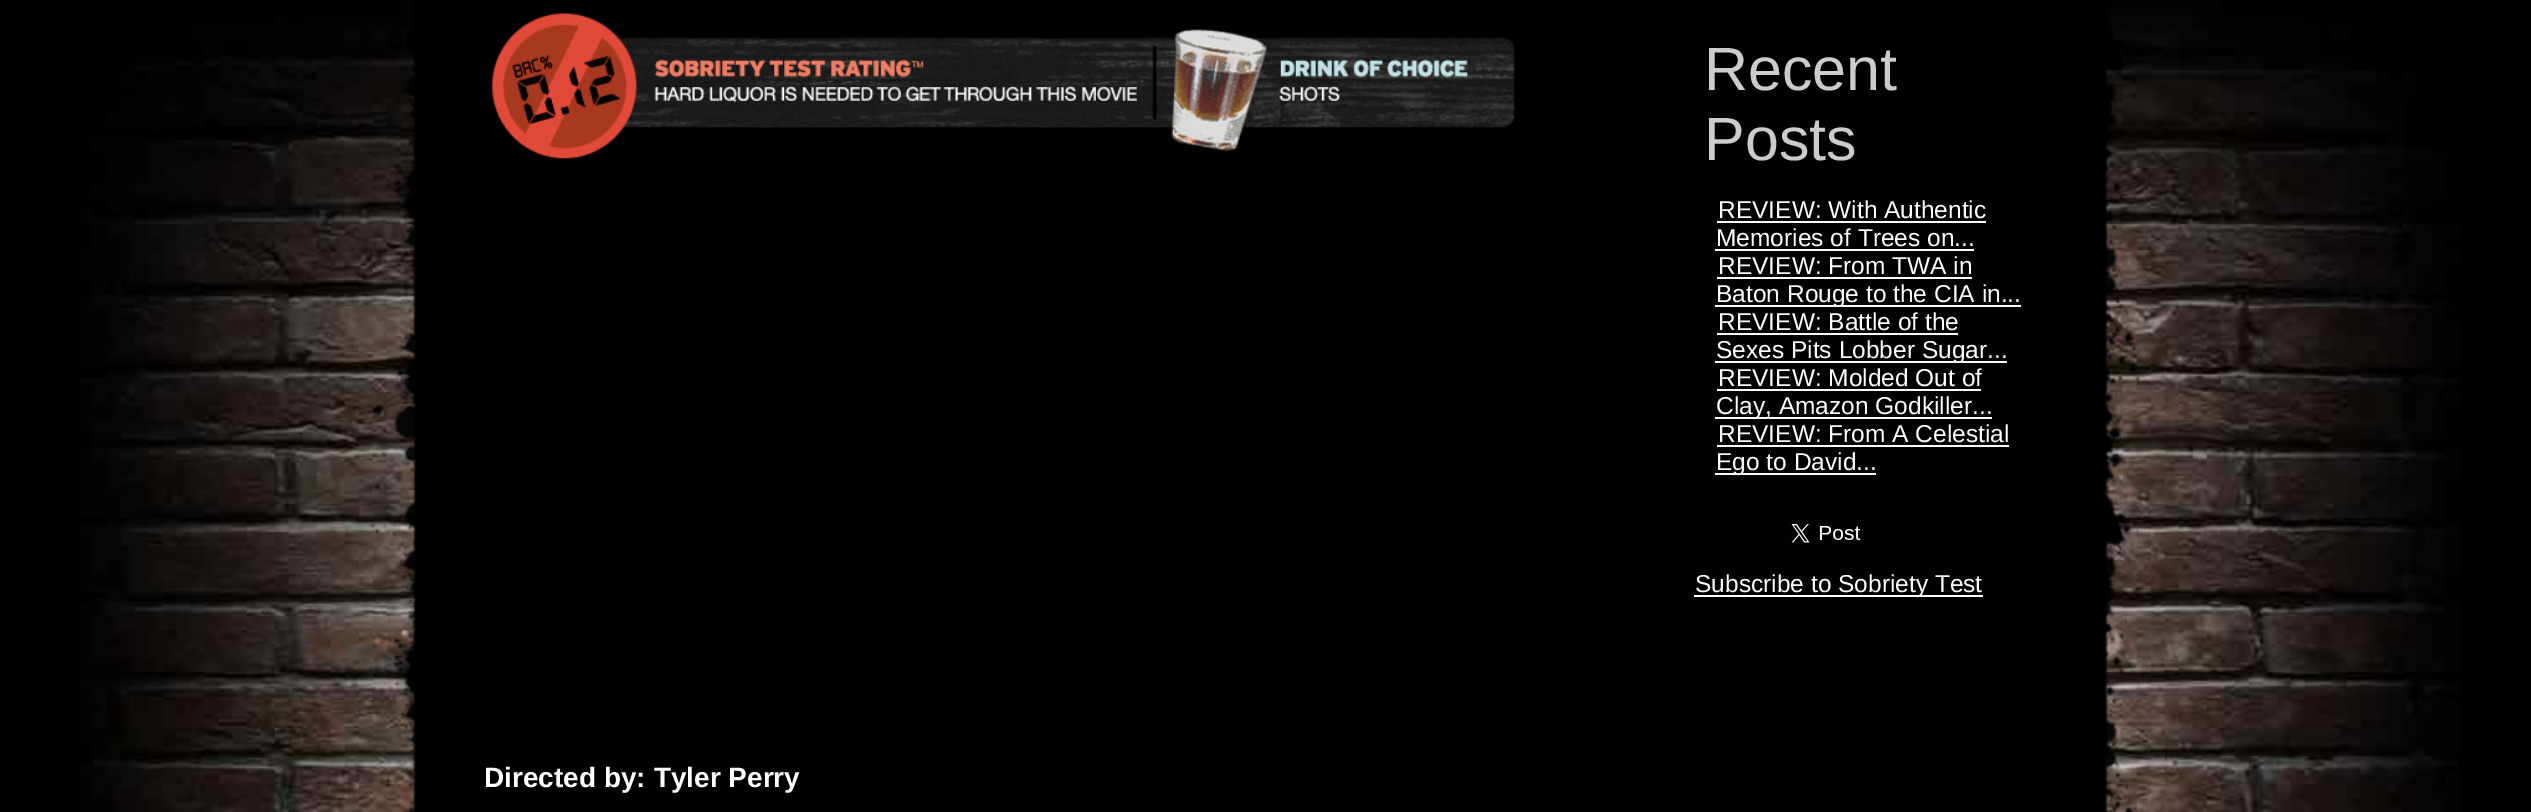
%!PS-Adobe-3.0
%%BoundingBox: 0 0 2531 812
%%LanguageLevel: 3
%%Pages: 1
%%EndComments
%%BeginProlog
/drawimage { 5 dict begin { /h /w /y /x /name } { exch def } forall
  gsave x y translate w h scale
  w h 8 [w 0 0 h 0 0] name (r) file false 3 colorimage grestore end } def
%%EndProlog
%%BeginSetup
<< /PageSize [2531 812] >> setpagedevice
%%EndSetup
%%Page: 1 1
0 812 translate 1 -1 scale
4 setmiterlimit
0 setgray
0 0 2531 812 rectfill
(images/1.raw) 79 0 2380 812 drawimage
(images/2.raw) 347 0 1834 812 drawimage
1 setgray
1717 221 269 2 rectfill
1715 249 259 2 rectfill
1717 277 255 2 rectfill
1715 305 306 2 rectfill
1717 333 241 2 rectfill
1715 361 292 2 rectfill
1717 389 264 2 rectfill
1715 417 277 2 rectfill
1717 445 292 2 rectfill
1715 473 161 2 rectfill
(images/3.raw) 1791 524 70 19 drawimage
1694 595 289 2 rectfill
(images/4.raw) 492 13 1023 146 drawimage
/LiberationSans-Regular [61 0 0 -61 0 0] selectfont
0.8 setgray
1704 90 moveto (Recent) show
1704 160 moveto (Posts) show
/LiberationSans-Regular [24.5 0 0 -24.5 0 0] selectfont
1 setgray
1718 218 moveto (REVIEW: With Authentic) show
1716 246 moveto (Memories of Trees on...) show
1718 274 moveto (REVIEW: From TWA in) show
1716 302 moveto (Baton Rouge to the CIA in...) show
1718 330 moveto (REVIEW: Battle of the) show
1716 358 moveto (Sexes Pits Lobber Sugar...) show
1718 386 moveto (REVIEW: Molded Out of) show
1716 414 moveto (Clay, Amazon Godkiller...) show
1718 442 moveto (REVIEW: From A Celestial) show
1716 470 moveto (Ego to David...) show
1695 592 moveto (Subscribe to Sobriety Test) show
/LiberationSans-Bold [28 0 0 -28 0 0] selectfont
484 787 moveto (Directed by: Tyler Perry) show
showpage
%%EOF
